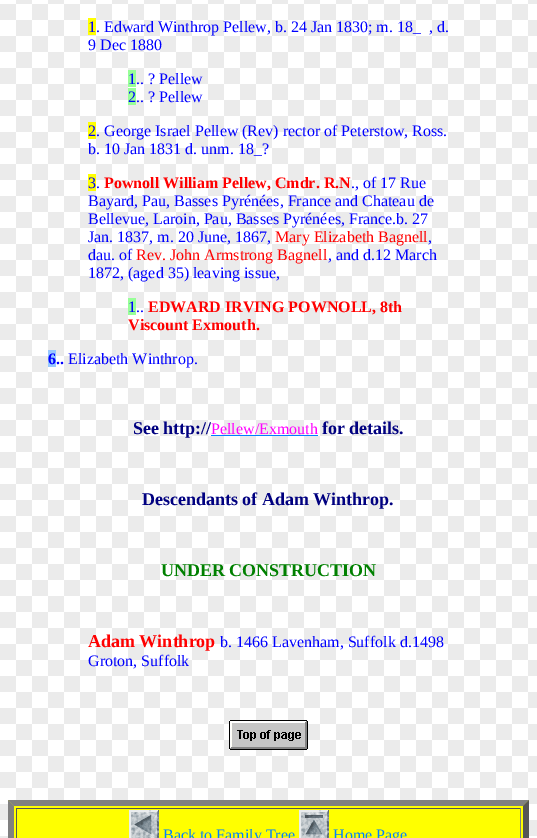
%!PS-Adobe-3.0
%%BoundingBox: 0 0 537 838
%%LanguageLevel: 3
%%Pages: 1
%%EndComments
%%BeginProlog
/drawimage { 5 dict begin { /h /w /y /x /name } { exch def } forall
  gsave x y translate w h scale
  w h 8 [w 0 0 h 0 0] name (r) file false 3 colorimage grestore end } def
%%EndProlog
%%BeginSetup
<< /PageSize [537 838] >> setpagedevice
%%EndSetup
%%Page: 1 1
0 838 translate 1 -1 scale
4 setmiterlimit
1 setgray
0 0 537 838 rectfill
(images/1.raw) 0 0 537 838 drawimage
1 1 0 setrgbcolor
88 18 8 17 rectfill
0.596 1 0.596 setrgbcolor
128 70 8 17 rectfill
128 88 8 17 rectfill
1 1 0 setrgbcolor
88 122 8 17 rectfill
88 174 8 17 rectfill
0.596 1 0.596 setrgbcolor
128 298 8 17 rectfill
0.596 0.784 1 setrgbcolor
48 350 8 17 rectfill
(images/2.raw) 229 720 79 30 drawimage
1 1 0 setrgbcolor
8 800 521 38 rectfill
0.502 setgray
newpath 8 800 moveto 529 800 lineto 523 806 lineto 14 806 lineto closepath fill
0.333 setgray
newpath 529 800 moveto 529 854 lineto 523 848 lineto 523 806 lineto closepath fill
0.502 setgray
newpath 8 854 moveto 8 800 lineto 14 806 lineto 14 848 lineto closepath fill
0.333 setgray
16 808 505 1 rectfill
0.502 setgray
520 808 1 30 rectfill
0.333 setgray
16 808 1 30 rectfill
(images/3.raw) 129 810 30 28 drawimage
(images/4.raw) 299 810 30 28 drawimage
/LiberationSerif-Regular [16 0 0 -16 0 0] selectfont
0 0 1 setrgbcolor
88 32 moveto (1. Edward Winthrop Pellew, b. 24 Jan 1830; m. 18_  , d.) show
88 50 moveto (9 Dec 1880) show
128 84 moveto (1.. ? Pellew) show
128 102 moveto (2.. ? Pellew) show
88 136 moveto (2. George Israel Pellew \(Rev\) rector of Peterstow, Ross.) show
88 154 moveto (b. 10 Jan 1831 d. unm. 18_?) show
88 188 moveto (3.) show
/LiberationSerif-Bold [16 0 0 -16 0 0] selectfont
1 0 0 setrgbcolor
104 188 moveto (Pownoll William Pellew, Cmdr. R.N) show
/LiberationSerif-Regular [16 0 0 -16 0 0] selectfont
0 0 1 setrgbcolor
351 188 moveto (., of 17 Rue) show
88 206 moveto (Bayard, Pau, Basses Pyrénées, France and Chateau de) show
88 224 moveto (Bellevue, Laroin, Pau, Basses Pyrénées, France.b. 27) show
88 242 moveto (Jan. 1837, m. 20 June, 1867,) show
1 0 0 setrgbcolor
275 242 moveto (Mary Elizabeth Bagnell) show
0 0 1 setrgbcolor
428 242 moveto (,) show
88 260 moveto (dau. of) show
1 0 0 setrgbcolor
136 260 moveto (Rev. John Armstrong Bagnell) show
0 0 1 setrgbcolor
328 260 moveto (, and d.12 March) show
88 278 moveto (1872, \(aged 35\) leaving issue,) show
128 312 moveto (1..) show
/LiberationSerif-Bold [16 0 0 -16 0 0] selectfont
1 0 0 setrgbcolor
148 312 moveto (EDWARD IRVING POWNOLL, 8th) show
128 330 moveto (Viscount Exmouth.) show
0 0 1 setrgbcolor
48 364 moveto (6..) show
/LiberationSerif-Regular [16 0 0 -16 0 0] selectfont
68 364 moveto (Elizabeth Winthrop.) show
/LiberationSerif-Bold [18 0 0 -18 0 0] selectfont
0 0 0.502 setrgbcolor
133 434 moveto (See http://) show
/LiberationSerif-Regular [16 0 0 -16 0 0] selectfont
1 0 1 setrgbcolor
211 434 moveto (Pellew/Exmouth) show
0 0.502 1 setrgbcolor
211 435 107 1 rectfill
/LiberationSerif-Bold [18 0 0 -18 0 0] selectfont
0 0 0.502 setrgbcolor
322 434 moveto (for details.) show
142 505 moveto (Descendants of Adam Winthrop.) show
0 0.502 0 setrgbcolor
161 576 moveto (UNDER CONSTRUCTION) show
1 0 0 setrgbcolor
88 647 moveto (Adam Winthrop) show
/LiberationSerif-Regular [16 0 0 -16 0 0] selectfont
0 0 1 setrgbcolor
220 647 moveto (b. 1466 Lavenham, Suffolk d.1498) show
88 666 moveto (Groton, Suffolk) show
0 0.502 1 setrgbcolor
163 840 moveto (Back to Family Tree) show
333 840 moveto (Home Page) show
showpage
%%EOF
